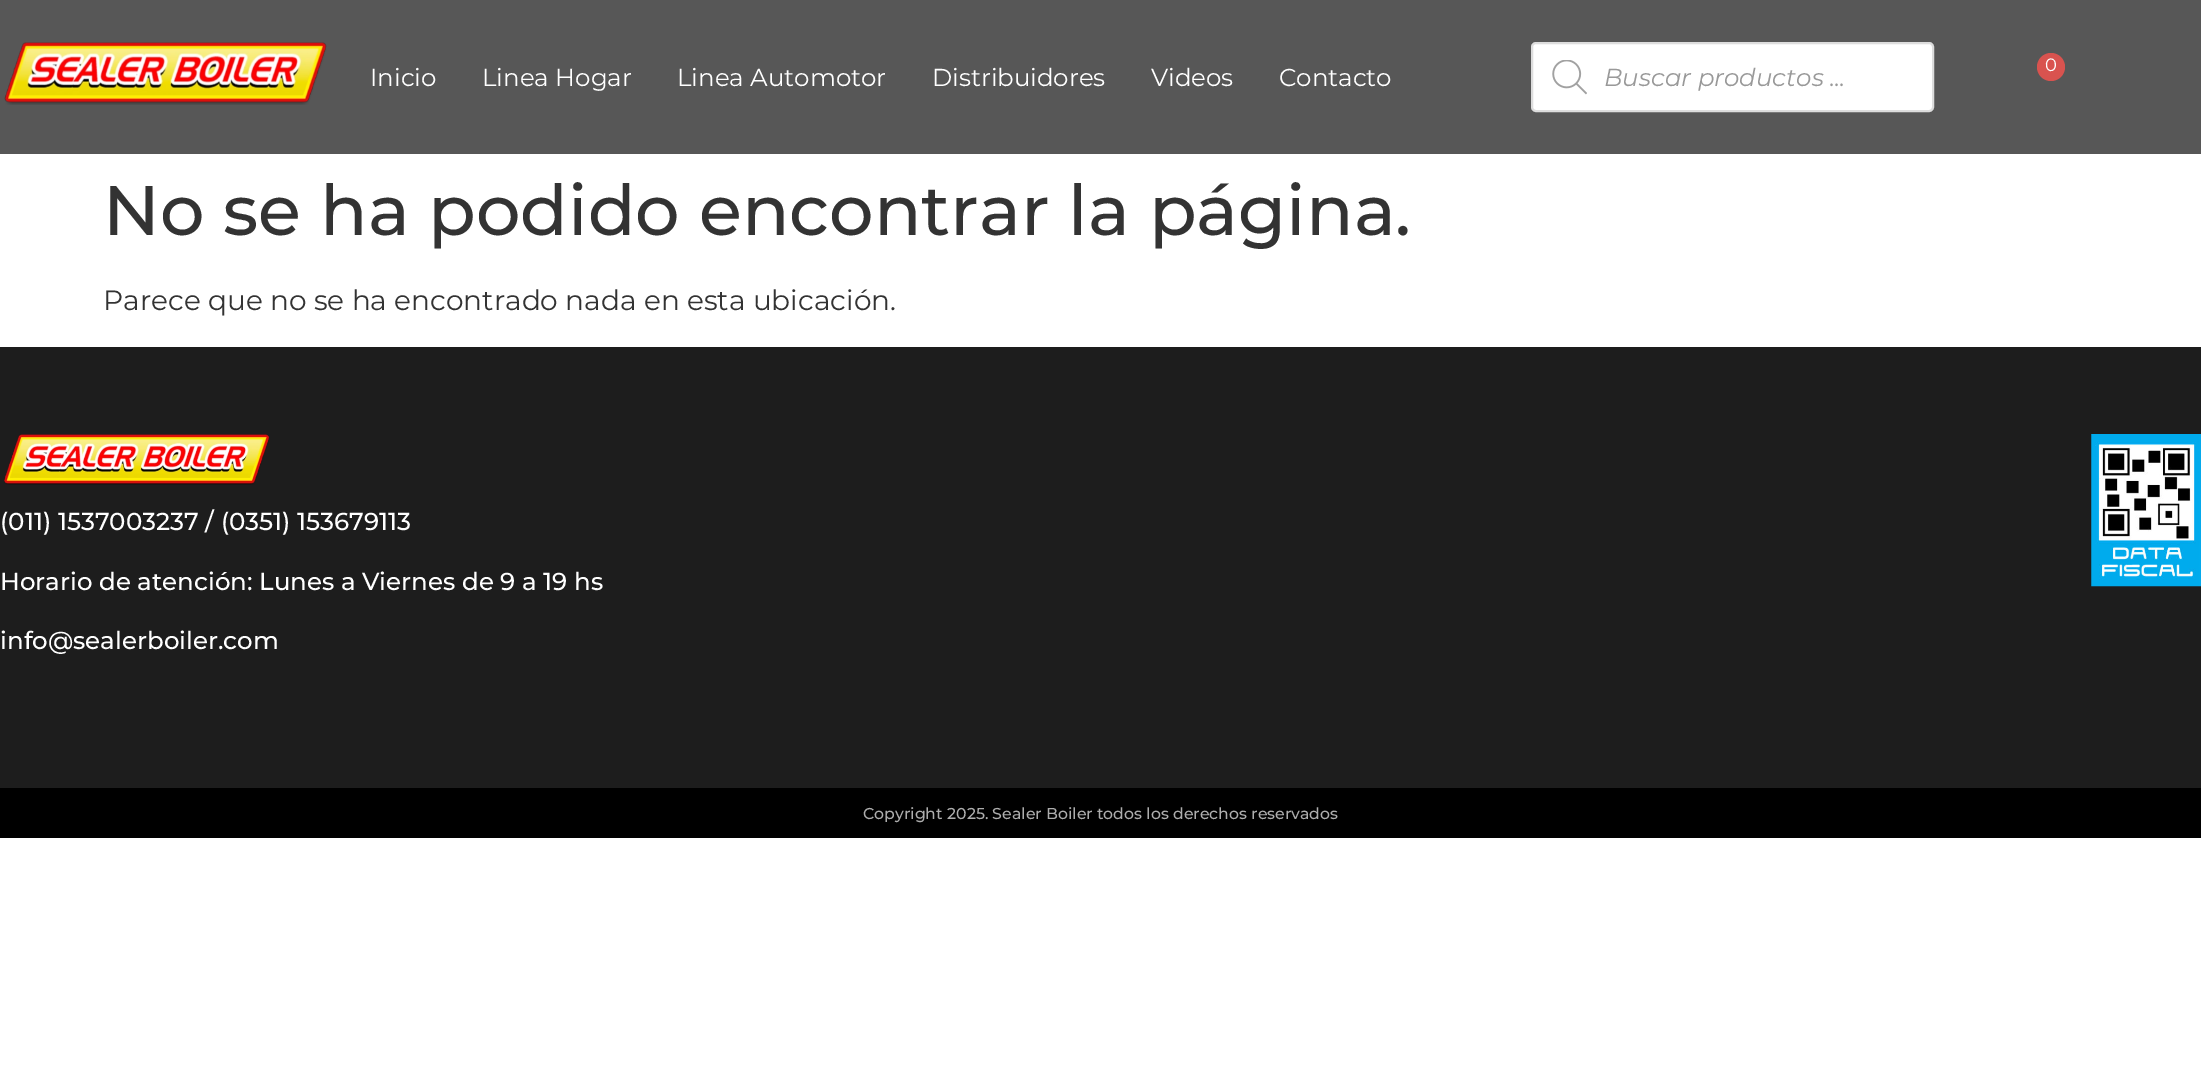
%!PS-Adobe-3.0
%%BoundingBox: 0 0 2201 1067
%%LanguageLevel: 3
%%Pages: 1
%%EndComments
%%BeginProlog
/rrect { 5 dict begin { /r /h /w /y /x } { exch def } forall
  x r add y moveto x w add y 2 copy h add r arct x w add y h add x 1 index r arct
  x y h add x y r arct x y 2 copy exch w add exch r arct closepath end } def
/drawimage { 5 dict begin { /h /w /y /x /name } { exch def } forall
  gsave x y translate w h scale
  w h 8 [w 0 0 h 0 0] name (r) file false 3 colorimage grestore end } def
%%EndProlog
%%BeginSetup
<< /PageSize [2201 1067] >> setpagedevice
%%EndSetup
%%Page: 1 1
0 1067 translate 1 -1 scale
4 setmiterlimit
1 setgray
0 0 2201 1067 rectfill
0.341 setgray
0 0 2201 154 rectfill
(images/1.raw) 4 42 323 63 drawimage
0.851 0.325 0.31 setrgbcolor
newpath 2051 67 14 0 360 arc closepath fill
1 setgray
1532 43 401 68 4 rrect gsave fill grestore
0.867 setgray
2 setlinewidth
stroke
(images/2.raw) 1552 60 35 35 drawimage
0.114 setgray
0 347 2201 441 rectfill
(images/3.raw) 4 434 266 51 drawimage
(images/4.raw) 2091 434 110 153 drawimage
0 setgray
0 788 2201 50 rectfill
/Montserrat-Regular [18 0 0 -18 0 0] selectfont
1 setgray
2045 71 moveto (0) show
/Montserrat-Regular [24.5 0 0 -24.5 0 0] selectfont
370 86 moveto (Inicio) show
482 86 moveto (Linea Hogar) show
677 86 moveto (Linea Automotor) show
932 86 moveto (Distribuidores) show
1151 86 moveto (Videos) show
1279 86 moveto (Contacto) show
/Montserrat-Italic [24.5 0 0 -24.5 0 0] selectfont
0.6 setgray
1604 86 moveto (Buscar productos ...) show
/Montserrat-Medium [70 0 0 -70 0 0] selectfont
0.2 setgray
103 235 moveto (No se ha podido encontrar la página.) show
/Montserrat-Regular [28 0 0 -28 0 0] selectfont
103 310 moveto (Parece que no se ha encontrado nada en esta ubicación.) show
/Montserrat-Medium [24.5 0 0 -24.5 0 0] selectfont
1 setgray
0 530 moveto (\(011\) 1537003237 / \(0351\) 153679113) show
0 590 moveto (Horario de atención: Lunes a Viernes de 9 a 19 hs) show
0 649 moveto (info@sealerboiler.com) show
/Montserrat-Medium [15.75 0 0 -15.75 0 0] selectfont
0.678 setgray
863 819 moveto (Copyright 2025. Sealer Boiler todos los derechos reservados) show
showpage
%%EOF
